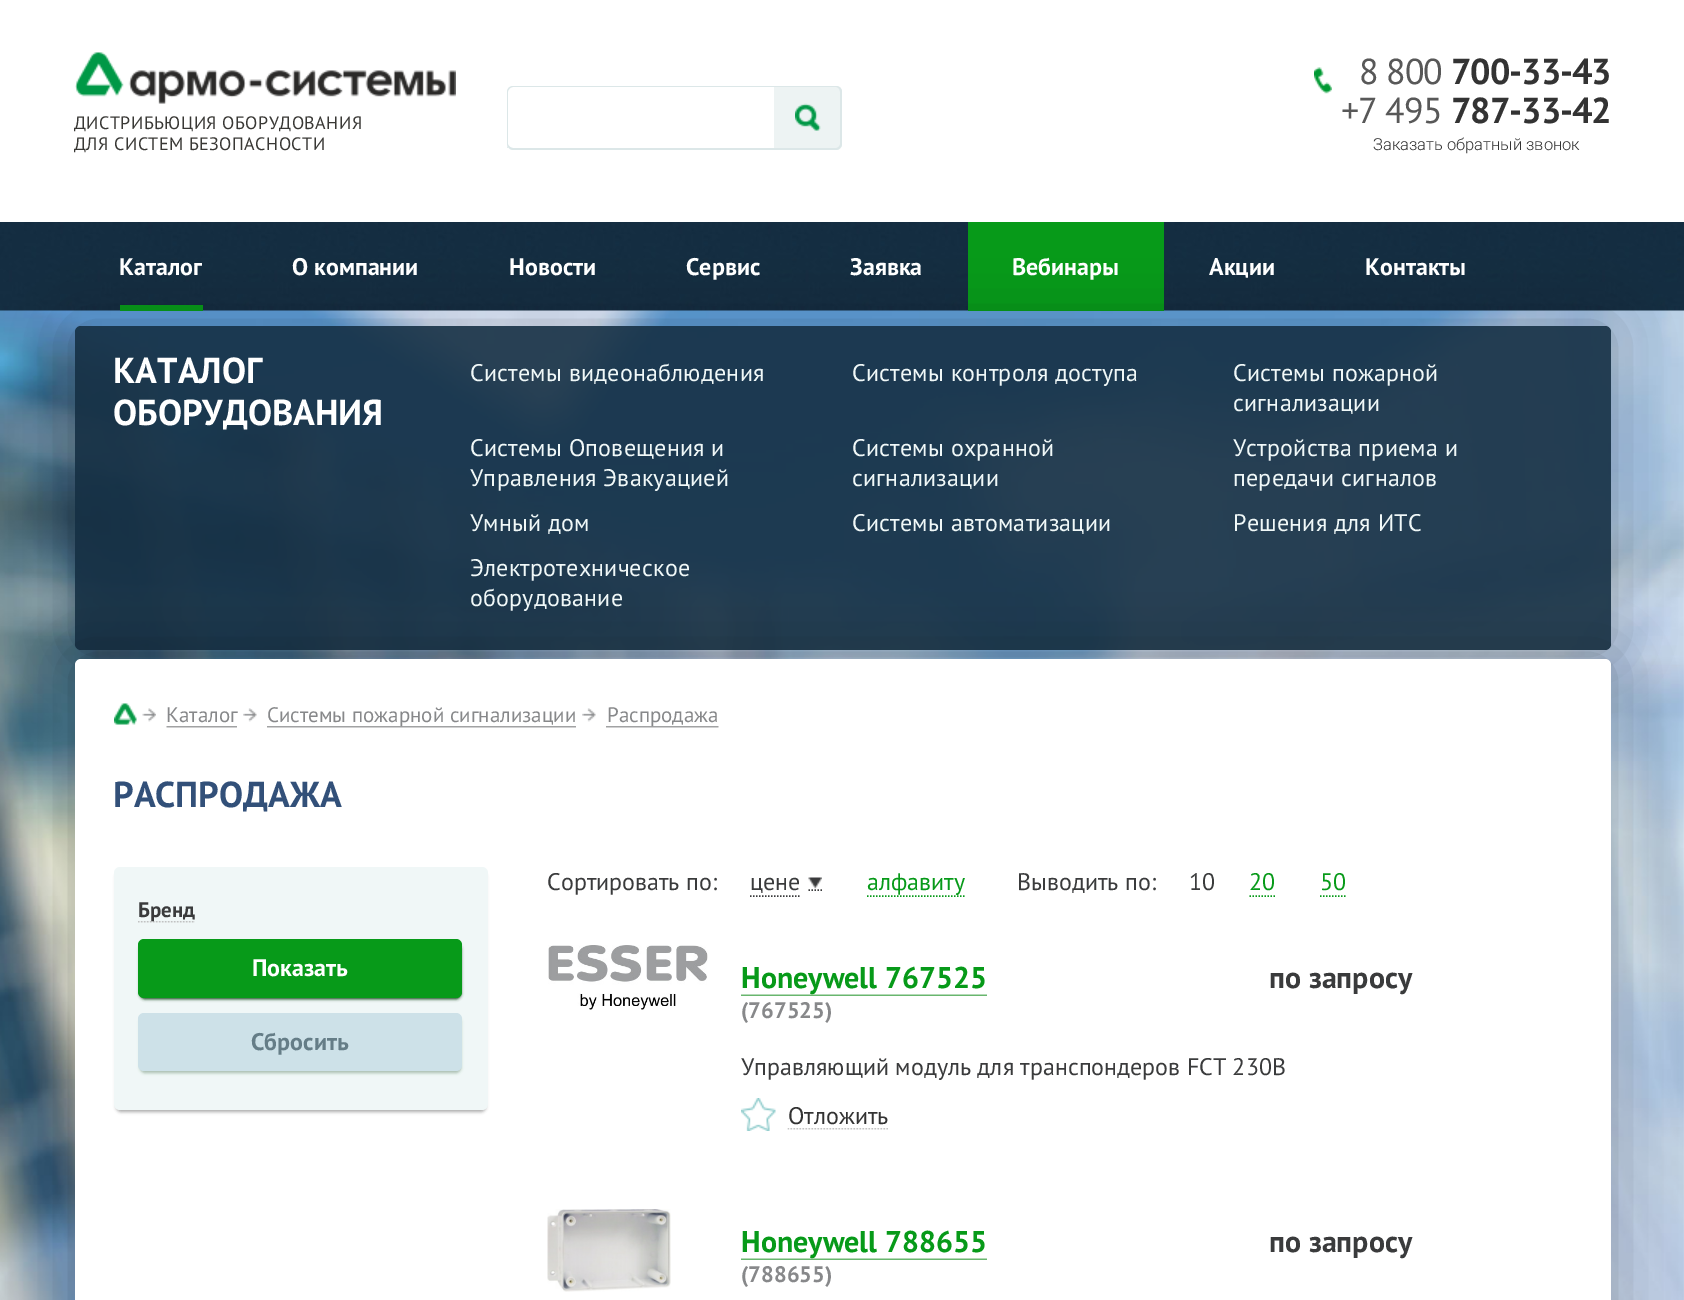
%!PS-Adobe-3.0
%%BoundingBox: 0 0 1684 1300
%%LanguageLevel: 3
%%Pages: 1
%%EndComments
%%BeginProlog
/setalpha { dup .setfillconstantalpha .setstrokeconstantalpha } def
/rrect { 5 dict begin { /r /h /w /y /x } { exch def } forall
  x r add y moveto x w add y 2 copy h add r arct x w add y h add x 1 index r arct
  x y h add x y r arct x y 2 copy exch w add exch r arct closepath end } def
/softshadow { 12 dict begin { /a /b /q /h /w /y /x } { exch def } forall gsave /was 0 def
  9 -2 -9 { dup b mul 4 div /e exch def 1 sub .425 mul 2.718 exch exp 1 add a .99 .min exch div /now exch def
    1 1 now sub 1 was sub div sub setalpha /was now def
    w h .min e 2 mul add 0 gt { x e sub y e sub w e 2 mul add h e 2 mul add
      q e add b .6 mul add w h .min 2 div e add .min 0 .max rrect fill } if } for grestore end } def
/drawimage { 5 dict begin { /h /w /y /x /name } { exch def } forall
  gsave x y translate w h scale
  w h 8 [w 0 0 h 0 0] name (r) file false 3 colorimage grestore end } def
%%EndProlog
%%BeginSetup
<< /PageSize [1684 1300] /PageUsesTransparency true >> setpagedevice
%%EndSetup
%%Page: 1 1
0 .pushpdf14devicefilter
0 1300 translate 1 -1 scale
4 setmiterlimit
1 setgray
0 0 1684 1300 rectfill
(images/1.raw) 0 310 1684 990 drawimage
(images/2.raw) 75 52 381 52 drawimage
0.863 0.906 0.91 setrgbcolor
newpath 508 147 1 0 360 arc closepath fill
1 setgray
newpath 513 86 moveto 774 86 lineto 774 150 lineto 513 150 lineto 509.5 150 507 147.5 507 144 curveto 507 92 lineto 507 88.5 509.5 86 513 86 curveto closepath fill
0.863 0.906 0.91 setrgbcolor
newpath 513 86 moveto 774 86 lineto 774 150 lineto 513 150 lineto 510 150 507 147 507 144 curveto 507 92 lineto 507 88 510 86 513 86 curveto closepath 513 87 moveto 774 87 lineto 774 148 lineto 513 148 lineto 511 148 508 146 508 144 curveto 508 92 lineto 508 89 511 87 513 87 curveto closepath eofill
0.929 0.953 0.953 setrgbcolor
newpath 774 86 moveto 836 86 lineto 839.5 86 842 88.5 842 92 curveto 842 144 lineto 842 147.5 839.5 150 836 150 curveto 774 150 lineto closepath fill
0.863 0.906 0.91 setrgbcolor
newpath 774 86 moveto 836 86 lineto 839 86 842 88 842 92 curveto 842 144 lineto 842 147 839 150 836 150 curveto 774 150 lineto closepath 774 87 moveto 836 87 lineto 838 87 840 89 840 92 curveto 840 144 lineto 840 146 838 148 836 148 curveto 774 148 lineto closepath eofill
(images/3.raw) 795 103 26 28 drawimage
(images/4.raw) 1314 67 18 27 drawimage
(images/5.raw) 0 222 1684 89 drawimage
0.027 0.604 0.098 setrgbcolor
120 305 83 6 rectfill
968 222 196 89 rectfill
gsave
newpath 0 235 moveto 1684 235 lineto 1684 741 lineto 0 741 lineto closepath 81 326 moveto 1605 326 lineto 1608.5 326 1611 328.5 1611 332 curveto 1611 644 lineto 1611 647.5 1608.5 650 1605 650 curveto 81 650 lineto 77.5 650 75 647.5 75 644 curveto 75 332 lineto 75 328.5 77.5 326 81 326 curveto closepath eoclip newpath
0 setgray
75 326 1536 324 6 30 0.25 softshadow
grestore
0.9 setalpha
0.078 0.18 0.259 setrgbcolor
75 326 1536 324 6 rrect fill
1 setalpha
0 setgray
75 659 1536 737 6 30 0.25 softshadow
1 setgray
75 659 1536 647 6 rrect fill
(images/6.raw) 114 703 23 22 drawimage
(images/7.raw) 142 708 14 14 drawimage
(images/8.raw) 166 726 71 2 drawimage
(images/9.raw) 243 708 14 14 drawimage
(images/10.raw) 267 726 309 2 drawimage
(images/11.raw) 582 708 14 14 drawimage
(images/12.raw) 606 726 113 2 drawimage
0 setgray
116 872 370 240 5 1.5 0.31 softshadow
0.941 0.969 0.969 setrgbcolor
114 867 374 243 6 rrect fill
(images/13.raw) 138 921 57 2 drawimage
0.008 0.224 0.035 setrgbcolor
140 944 321 55 5 1.5 1 softshadow
0.027 0.604 0.098 setrgbcolor
138 939 324 59 6 rrect fill
0.008 0.224 0.035 setrgbcolor
140 1017 321 56 5 1.5 0.3 softshadow
0.804 0.882 0.91 setrgbcolor
138 1013 324 58 6 rrect fill
0.227 0.231 0.235 setrgbcolor
1.5 setlinewidth
[1.5 1.5] 0 setdash
newpath 750 896 moveto 801 896 lineto stroke
newpath 808.5 890 moveto 822 890 lineto stroke
(images/14.raw) 808 877 14 12 drawimage
0.027 0.604 0.098 setrgbcolor
newpath 867 896 moveto 964.5 896 lineto stroke
newpath 1249.5 896 moveto 1275 896 lineto stroke
newpath 1320 896 moveto 1347 896 lineto stroke
(images/15.raw) 548 945 160 65 drawimage
(images/16.raw) 741 994 246 2 drawimage
(images/17.raw) 741 1098 35 33 drawimage
(images/18.raw) 787 1128 101 2 drawimage
(images/19.raw) 547 1209 124 83 drawimage
(images/16.raw) 741 1258 246 2 drawimage
/PTSans-Regular [18 0 0 -18 0 0] selectfont
0.224 0.22 0.208 setrgbcolor
74 129 moveto 0.45 0 (ДИСТРИБЬЮЦИЯ ОБОРУДОВАНИЯ) ashow
74 150 moveto 0.45 0 (ДЛЯ СИСТЕМ БЕЗОПАСНОСТИ) ashow
/PTSans-Regular [36 0 0 -36 0 0] selectfont
0.345 setgray
1359 84 moveto -1 0 (8 800) ashow
/PTSans-Bold [36 0 0 -36 0 0] selectfont
0.2 setgray
1451 84 moveto -1 0 (700-33-43) ashow
/PTSans-Regular [36 0 0 -36 0 0] selectfont
0.345 setgray
1341 123 moveto -1 0 (+7 495) ashow
/PTSans-Bold [36 0 0 -36 0 0] selectfont
0.2 setgray
1451 123 moveto -1 0 (787-33-42) ashow
/Roboto-Light [16.5 0 0 -16.5 0 0] selectfont
1373 150 moveto (Заказать обратный звонок) show
/PTSans-Bold [24 0 0 -24 0 0] selectfont
1 setgray
119 275 moveto (Каталог) show
292 275 moveto (О компании) show
509 275 moveto (Новости) show
686 275 moveto (Сервис) show
850 275 moveto (Заявка) show
1012 275 moveto (Вебинары) show
1209 275 moveto (Акции) show
1365 275 moveto (Контакты) show
/PTSans-Bold [36 0 0 -36 0 0] selectfont
113 383 moveto (КАТАЛОГ) show
113 425 moveto (ОБОРУДОВАНИЯ) show
/PTSans-Regular [24 0 0 -24 0 0] selectfont
0.941 0.973 0.973 setrgbcolor
470 381 moveto 0.2 0 (Системы видеонаблюдения) ashow
852 381 moveto 0.2 0 (Системы контроля доступа) ashow
1233 381 moveto 0.2 0 (Системы пожарной) ashow
1233 411 moveto 0.2 0 (сигнализации) ashow
470 456 moveto 0.2 0 (Системы Оповещения и) ashow
470 486 moveto 0.2 0 (Управления Эвакуацией) ashow
852 456 moveto 0.2 0 (Системы охранной) ashow
852 486 moveto 0.2 0 (сигнализации) ashow
1233 456 moveto 0.2 0 (Устройства приема и) ashow
1233 486 moveto 0.2 0 (передачи сигналов) ashow
470 531 moveto 0.2 0 (Умный дом) ashow
852 531 moveto 0.2 0 (Системы автоматизации) ashow
1233 531 moveto 0.2 0 (Решения для ИТС) ashow
470 576 moveto 0.2 0 (Электротехническое) ashow
470 606 moveto 0.2 0 (оборудование) ashow
/PTSans-Regular [21 0 0 -21 0 0] selectfont
0.529 0.533 0.541 setrgbcolor
166 722 moveto (Каталог) show
267 722 moveto (Системы пожарной сигнализации) show
607 722 moveto (Распродажа) show
/PTSans-Bold [36 0 0 -36 0 0] selectfont
0.196 0.314 0.475 setrgbcolor
113 807 moveto (РАСПРОДАЖА) show
/PTSans-Bold [21 0 0 -21 0 0] selectfont
0.227 0.231 0.235 setrgbcolor
138 917 moveto (Бренд) show
/PTSans-Bold [24 0 0 -24 0 0] selectfont
1 setgray
252 976 moveto (Показать) show
0.396 0.49 0.529 setrgbcolor
251 1050 moveto (Сбросить) show
/PTSans-Regular [24 0 0 -24 0 0] selectfont
0.227 0.231 0.235 setrgbcolor
547 890 moveto (Сортировать по:) show
750 890 moveto (цене) show
0.027 0.604 0.098 setrgbcolor
867 890 moveto (алфавиту) show
0.227 0.231 0.235 setrgbcolor
1017 890 moveto (Выводить по:) show
1189 890 moveto (10) show
0.027 0.604 0.098 setrgbcolor
1249 890 moveto (20) show
1320 890 moveto (50) show
/PTSans-Bold [30 0 0 -30 0 0] selectfont
741 988 moveto (Honeywell 767525) show
/PTSans-Bold [22.5 0 0 -22.5 0 0] selectfont
0.529 0.533 0.541 setrgbcolor
741 1018 moveto (\(767525\)) show
/PTSans-Bold [30 0 0 -30 0 0] selectfont
0.227 0.231 0.235 setrgbcolor
1269 988 moveto (по запросу) show
/PTSans-Regular [24 0 0 -24 0 0] selectfont
741 1075 moveto (Управляющий модуль для транспондеров FCT 230В) show
0.2 setgray
788 1124 moveto (Отложить) show
/PTSans-Bold [30 0 0 -30 0 0] selectfont
0.027 0.604 0.098 setrgbcolor
741 1252 moveto (Honeywell 788655) show
/PTSans-Bold [22.5 0 0 -22.5 0 0] selectfont
0.529 0.533 0.541 setrgbcolor
741 1282 moveto (\(788655\)) show
/PTSans-Bold [30 0 0 -30 0 0] selectfont
0.227 0.231 0.235 setrgbcolor
1269 1252 moveto (по запросу) show
.poppdf14devicefilter showpage
%%EOF
